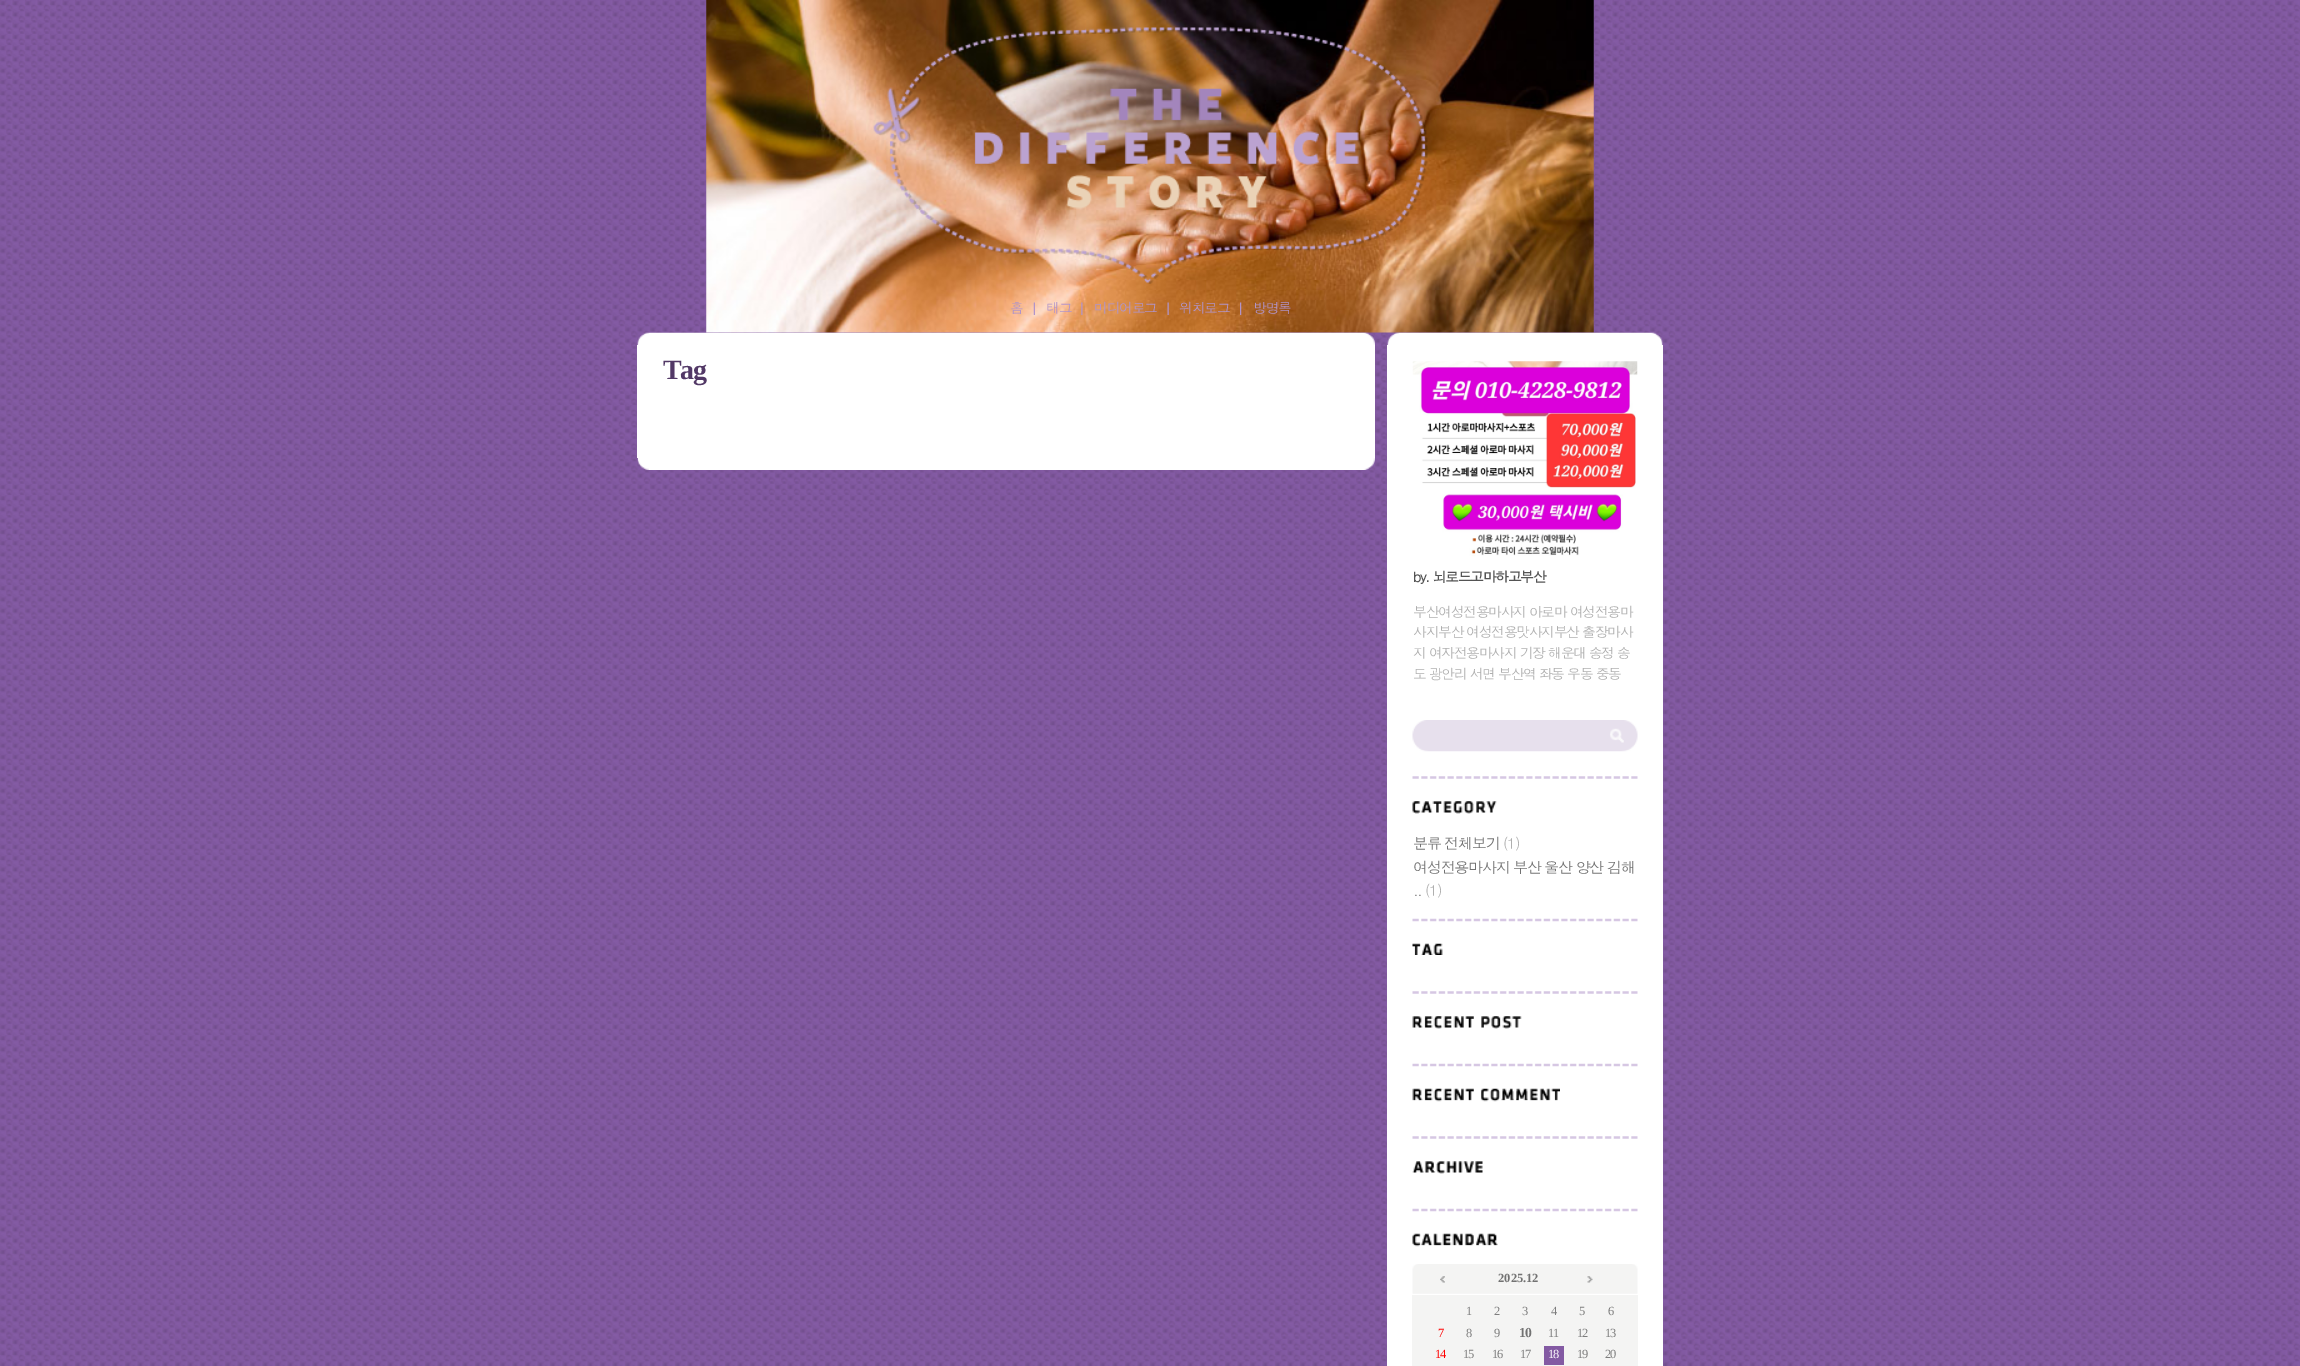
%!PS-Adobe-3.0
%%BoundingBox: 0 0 2300 1366
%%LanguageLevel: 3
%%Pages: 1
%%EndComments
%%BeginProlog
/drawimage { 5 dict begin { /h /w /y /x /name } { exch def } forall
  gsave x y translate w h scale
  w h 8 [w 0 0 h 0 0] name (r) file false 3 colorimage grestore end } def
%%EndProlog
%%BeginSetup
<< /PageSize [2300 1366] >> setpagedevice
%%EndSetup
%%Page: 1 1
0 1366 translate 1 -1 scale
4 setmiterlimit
1 setgray
0 0 2300 1366 rectfill
(images/1.raw) 0 0 2300 1366 drawimage
(images/2.raw) 706 0 888 333 drawimage
(images/3.raw) 873 27 555 257 drawimage
(images/4.raw) 1033 302 2 13 drawimage
(images/5.raw) 1081 302 2 13 drawimage
(images/6.raw) 1167 302 2 13 drawimage
(images/7.raw) 1240 302 2 13 drawimage
(images/8.raw) 637 332 13 13 drawimage
(images/9.raw) 650 332 725 13 drawimage
637 345 738 113 rectfill
(images/10.raw) 637 458 13 12 drawimage
(images/11.raw) 650 458 725 12 drawimage
(images/12.raw) 1387 332 276 13 drawimage
1387 345 276 1021 rectfill
(images/13.raw) 1412 361 226 196 drawimage
(images/14.raw) 1412 720 226 32 drawimage
(images/15.raw) 1412 776 226 3 drawimage
(images/16.raw) 1412 801 85 13 drawimage
(images/17.raw) 1412 918 226 4 drawimage
(images/18.raw) 1412 943 31 12 drawimage
(images/15.raw) 1412 991 226 3 drawimage
(images/19.raw) 1412 1016 110 13 drawimage
(images/17.raw) 1412 1063 226 4 drawimage
(images/20.raw) 1412 1088 148 14 drawimage
(images/15.raw) 1412 1136 226 3 drawimage
(images/21.raw) 1412 1161 71 13 drawimage
(images/17.raw) 1412 1208 226 4 drawimage
(images/22.raw) 1412 1233 86 14 drawimage
(images/23.raw) 1412 1264 226 30 drawimage
(images/24.raw) 1440 1276 5 7 drawimage
(images/25.raw) 1587 1276 6 7 drawimage
0.957 0.957 0.953 setrgbcolor
1412 1295 226 71 rectfill
0.514 0.353 0.639 setrgbcolor
1544 1346 20 19 rectfill
/Dotum-Regular [13.75 0 0 -13.75 0 0] selectfont
0.694 0.58 0.792 setrgbcolor
1010 313 moveto -1.25 0 (홈) ashow
1046 313 moveto -1.25 0 (태그) ashow
1094 313 moveto -1.25 0 (미디어로그) ashow
1179 313 moveto -1.25 0 (위치로그) ashow
1253 313 moveto -1.25 0 (방명록) ashow
/LiberationSerif-Bold [28 0 0 -28 0 0] selectfont
0.322 0.22 0.4 setrgbcolor
663 379 moveto -1.25 0 (Tag) ashow
/Dotum-Bold [13.75 0 0 -13.75 0 0] selectfont
0.329 setgray
1413 582 moveto -1.25 0 (by. 뇌로드고마하고부산) ashow
/Dotum-Regular [13.75 0 0 -13.75 0 0] selectfont
0.686 setgray
1413 617 moveto -1.25 0 (부산여성전용마사지 아로마 여성전용마) ashow
1413 637 moveto -1.25 0 (사지부산 여성전용맛사지부산 출장마사) ashow
1413 658 moveto -1.25 0 (지 여자전용마사지 기장 해운대 송정 송) ashow
1413 679 moveto -1.25 0 (도 광안리 서면 부산역 좌동 우동 중동) ashow
/Dotum-Regular [15 0 0 -15 0 0] selectfont
0.447 setgray
1413 849 moveto -1.25 0 (분류 전체보기) ashow
0.686 setgray
1503 849 moveto -1.25 0 (\(1\)) ashow
0.447 setgray
1413 873 moveto -1.25 0 (여성전용마사지 부산 울산 양산 김해) ashow
1413 896 moveto -1.25 0 (..) ashow
0.686 setgray
1425 896 moveto -1.25 0 (\(1\)) ashow
/LiberationSerif-Bold [12.5 0 0 -12.5 0 0] selectfont
0.447 setgray
1498 1282 moveto (2025.12) show
/LiberationSerif-Regular [12.5 0 0 -12.5 0 0] selectfont
0.49 setgray
1466 1315 moveto -1.25 0 (1) ashow
1494 1315 moveto -1.25 0 (2) ashow
1522 1315 moveto -1.25 0 (3) ashow
1551 1315 moveto -1.25 0 (4) ashow
1579 1315 moveto -1.25 0 (5) ashow
1608 1315 moveto -1.25 0 (6) ashow
1 0 0 setrgbcolor
1438 1337 moveto -1.25 0 (7) ashow
0.49 setgray
1466 1337 moveto -1.25 0 (8) ashow
1494 1337 moveto -1.25 0 (9) ashow
/LiberationSerif-Bold [13.75 0 0 -13.75 0 0] selectfont
0.447 setgray
1519 1337 moveto -1.25 0 (10) ashow
/LiberationSerif-Regular [12.5 0 0 -12.5 0 0] selectfont
0.49 setgray
1548 1337 moveto -1.25 0 (11) ashow
1577 1337 moveto -1.25 0 (12) ashow
1605 1337 moveto -1.25 0 (13) ashow
1 0 0 setrgbcolor
1435 1358 moveto -1.25 0 (14) ashow
0.49 setgray
1463 1358 moveto -1.25 0 (15) ashow
1492 1358 moveto -1.25 0 (16) ashow
1520 1358 moveto -1.25 0 (17) ashow
1 setgray
1548 1358 moveto -1.25 0 (18) ashow
0.49 setgray
1577 1358 moveto -1.25 0 (19) ashow
1605 1358 moveto -1.25 0 (20) ashow
showpage
%%EOF
